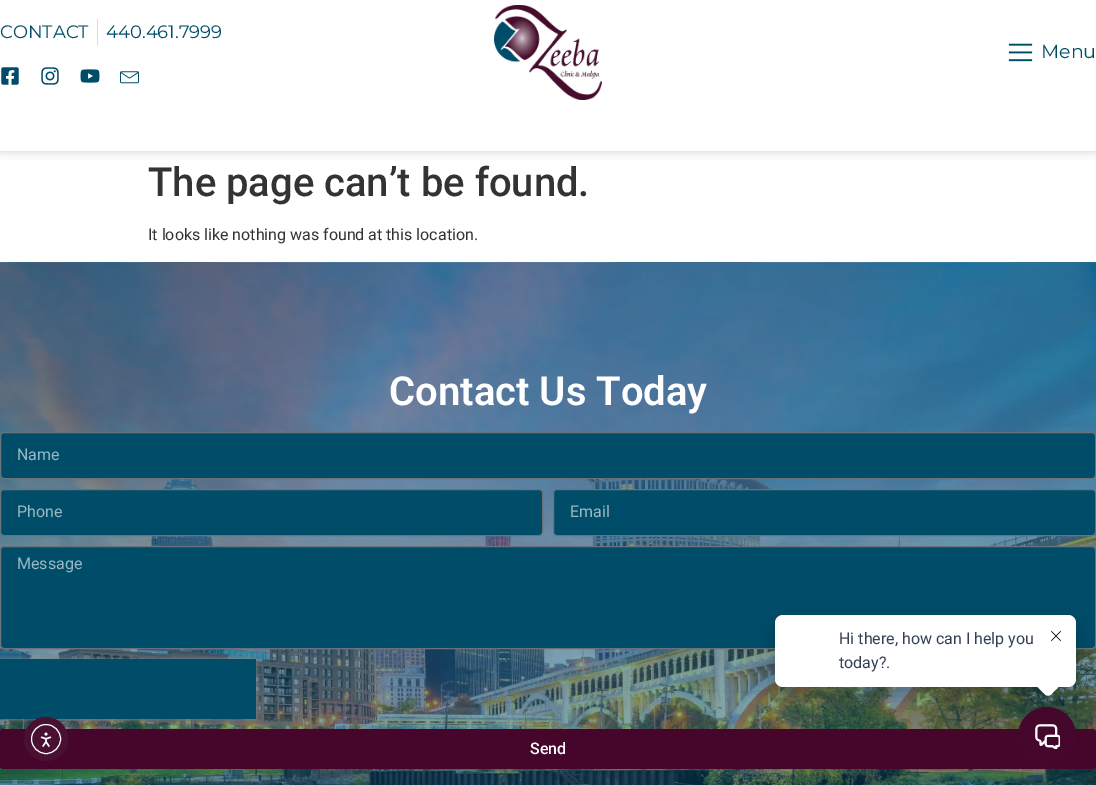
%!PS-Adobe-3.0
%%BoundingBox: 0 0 1096 785
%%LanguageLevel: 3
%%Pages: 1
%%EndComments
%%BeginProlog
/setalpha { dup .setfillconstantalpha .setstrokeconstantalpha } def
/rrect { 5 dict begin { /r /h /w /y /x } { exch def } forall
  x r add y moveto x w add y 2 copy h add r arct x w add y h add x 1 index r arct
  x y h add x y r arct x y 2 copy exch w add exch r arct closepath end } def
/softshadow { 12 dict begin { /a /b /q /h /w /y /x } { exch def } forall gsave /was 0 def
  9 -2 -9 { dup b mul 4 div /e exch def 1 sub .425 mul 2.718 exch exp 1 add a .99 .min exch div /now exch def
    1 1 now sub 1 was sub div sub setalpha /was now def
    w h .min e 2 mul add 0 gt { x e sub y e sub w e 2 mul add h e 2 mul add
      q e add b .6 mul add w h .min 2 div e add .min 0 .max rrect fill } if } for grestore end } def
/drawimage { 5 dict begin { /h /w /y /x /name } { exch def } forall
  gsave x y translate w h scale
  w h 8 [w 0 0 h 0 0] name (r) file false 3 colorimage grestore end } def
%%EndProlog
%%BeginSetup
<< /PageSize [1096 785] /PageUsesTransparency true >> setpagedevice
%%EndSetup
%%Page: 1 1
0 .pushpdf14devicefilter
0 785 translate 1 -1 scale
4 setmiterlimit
1 setgray
0 0 1096 785 rectfill
gsave
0 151 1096 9 rectclip
0.608 setgray
0 0 1096 151 0 5 0.5 softshadow
grestore
0.867 setgray
97 19 1 27 rectfill
(images/1.raw) 1 67 18 18 drawimage
(images/2.raw) 41 67 18 18 drawimage
(images/3.raw) 80 69 20 14 drawimage
(images/4.raw) 120 71 19 13 drawimage
(images/5.raw) 494 5 108 95 drawimage
(images/6.raw) 1008 43 25 19 drawimage
(images/7.raw) 0 262 1096 523 drawimage
0 0.302 0.412 setrgbcolor
0.5 432.5 1095 46 3.5 rrect gsave fill grestore
0.412 0.447 0.49 setrgbcolor
stroke
0 0.302 0.412 setrgbcolor
0.5 489.5 542 46 3.5 rrect gsave fill grestore
0.412 0.447 0.49 setrgbcolor
stroke
0 0.302 0.412 setrgbcolor
553.5 489.5 542 46 3.5 rrect gsave fill grestore
0.412 0.447 0.49 setrgbcolor
stroke
0 0.302 0.412 setrgbcolor
0.5 546.5 1095 102 3.5 rrect gsave fill grestore
0.412 0.447 0.49 setrgbcolor
stroke
0 0.302 0.412 setrgbcolor
0 659 256 60 rectfill
gsave
newpath 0 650 moveto 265 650 lineto 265 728 lineto 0 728 lineto closepath 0 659 moveto 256 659 lineto 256 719 lineto 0 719 lineto closepath eoclip newpath
0.502 setgray
0 659 256 60 0 2.5 1 softshadow
grestore
0.275 0.024 0.173 setrgbcolor
0 729 1096 40 3 rrect fill
0.29 0.063 0.192 setrgbcolor
newpath 46 739 22 0 360 arc closepath fill
1 setgray
newpath 46 739 14.5 0 360 arc closepath stroke
(images/8.raw) 40 732 12 15 drawimage
0.275 0.027 0.176 setrgbcolor
newpath 1047 736 29 0 360 arc closepath fill
(images/10.raw) 1035 724 25 25 drawimage
0 setgray
775 623 301 72 8 10 0.24 softshadow
1 setgray
775 615 301 72 8 rrect fill
newpath 1051 671.5 moveto 1059.5 680 lineto 1061 681.5 1061 684.5 1059.5 686 curveto 1051 694.5 lineto 1049.5 696 1046.5 696 1045 694.5 curveto 1036.5 686 lineto 1035 684.5 1035 681.5 1036.5 680 curveto 1045 671.5 lineto 1046.5 670 1049.5 670 1051 671.5 curveto closepath fill
(images/9.raw) 1051 631 10 10 drawimage
/Montserrat-Regular [18 0 0 -18 0 0] selectfont
0 0.302 0.412 setrgbcolor
0 38 moveto (CONTACT) show
106 38 moveto (440.461.7999) show
/Montserrat-Regular [19 0 0 -19 0 0] selectfont
1041 58 moveto (Menu) show
/Roboto-Medium [40 0 0 -40 0 0] selectfont
0.2 setgray
148 196 moveto (The page can’t be found.) show
/Roboto-Regular [16 0 0 -16 0 0] selectfont
148 240 moveto (It looks like nothing was found at this location.) show
/Roboto-SemiBold [40 0 0 -40 0 0] selectfont
1 setgray
389 405 moveto (Contact Us Today) show
/Roboto-Regular [16 0 0 -16 0 0] selectfont
0.6 0.722 0.765 setrgbcolor
17 460 moveto (Name) show
17 517 moveto (Phone) show
570 517 moveto (Email) show
17 569 moveto (Message) show
/Roboto-Medium [16 0 0 -16 0 0] selectfont
1 setgray
530 754 moveto (Send) show
/Roboto-Regular [16 0 0 -16 0 0] selectfont
0.204 0.251 0.329 setrgbcolor
839 644 moveto (Hi there, how can I help you) show
839 668 moveto (today?.) show
.poppdf14devicefilter showpage
%%EOF
